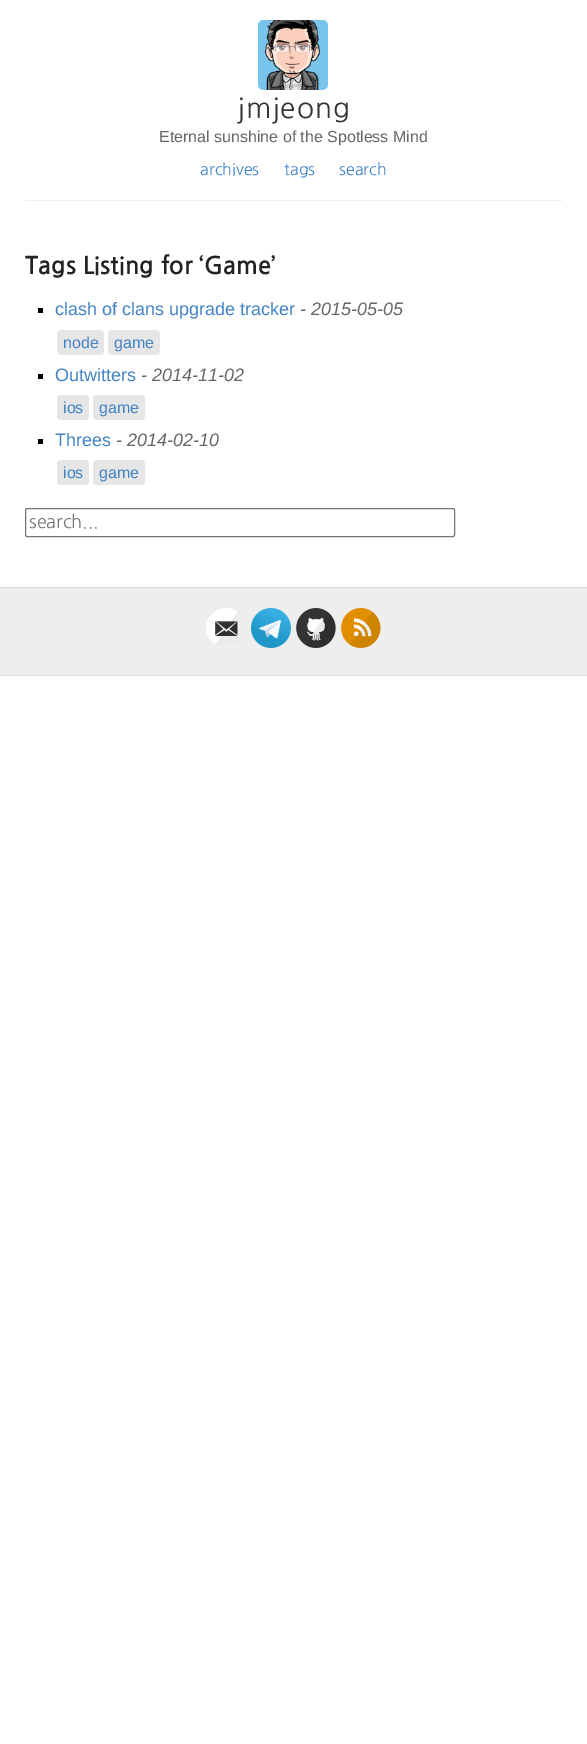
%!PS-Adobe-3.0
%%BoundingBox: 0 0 587 1744
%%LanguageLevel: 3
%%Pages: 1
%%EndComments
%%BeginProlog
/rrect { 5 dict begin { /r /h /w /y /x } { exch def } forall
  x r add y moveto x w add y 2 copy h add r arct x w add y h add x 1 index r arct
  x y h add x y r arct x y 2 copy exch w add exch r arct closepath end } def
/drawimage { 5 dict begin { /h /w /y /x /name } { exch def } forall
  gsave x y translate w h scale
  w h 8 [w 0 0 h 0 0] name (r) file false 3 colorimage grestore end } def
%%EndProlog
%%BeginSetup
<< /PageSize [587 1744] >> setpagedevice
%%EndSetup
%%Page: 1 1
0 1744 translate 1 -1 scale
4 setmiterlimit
1 setgray
0 0 587 1744 rectfill
0.933 setgray
25 200 537 1 rectfill
(images/1.raw) 258 20 70 70 drawimage
0 setgray
38 308 5 5 rectfill
0.902 setgray
57 330 47 25 4 rrect fill
108 330 52 25 4 rrect fill
0 setgray
38 374 5 5 rectfill
0.902 setgray
57 395 32 25 4 rrect fill
93 395 52 25 4 rrect fill
0 setgray
38 439 5 5 rectfill
0.902 setgray
57 460 32 25 4 rrect fill
93 460 52 25 4 rrect fill
0.463 setgray
25.5 508.5 429 28 1.5 rrect stroke
0.933 setgray
0 588 587 87 rectfill
0.867 setgray
0 587 587 1 rectfill
0 675 587 1 rectfill
(images/2.raw) 206 608 32 37 drawimage
(images/3.raw) 251 608 40 40 drawimage
(images/4.raw) 296 608 40 40 drawimage
(images/5.raw) 341 608 40 40 drawimage
/NanumGothic-Regular [28 0 0 -28 0 0] selectfont
0.2 setgray
237 118 moveto 1 0 (jmjeong) ashow
/LiberationSans-Regular [16 0 0 -16 0 0] selectfont
0.4 setgray
159 142 moveto (Eternal sunshine of the Spotless Mind) show
/NanumGothic-Regular [16 0 0 -16 0 0] selectfont
0.255 0.514 0.769 setrgbcolor
200 175 moveto (archives) show
284 175 moveto (tags) show
339 175 moveto (search) show
/NanumGothic-Bold [24 0 0 -24 0 0] selectfont
0.133 setgray
25 274 moveto (Tags Listing for ‘Game’) show
/LiberationSans-Regular [18 0 0 -18 0 0] selectfont
0.255 0.514 0.769 setrgbcolor
55 315 moveto (clash of clans upgrade tracker) show
/LiberationSans-Italic [18 0 0 -18 0 0] selectfont
0.4 setgray
300 315 moveto (- 2015-05-05) show
/LiberationSans-Regular [16 0 0 -16 0 0] selectfont
0.255 0.514 0.769 setrgbcolor
63 348 moveto (node) show
114 348 moveto (game) show
/LiberationSans-Regular [18 0 0 -18 0 0] selectfont
55 381 moveto (Outwitters) show
/LiberationSans-Italic [18 0 0 -18 0 0] selectfont
0.4 setgray
141 381 moveto (- 2014-11-02) show
/LiberationSans-Regular [16 0 0 -16 0 0] selectfont
0.255 0.514 0.769 setrgbcolor
63 413 moveto (ios) show
99 413 moveto (game) show
/LiberationSans-Regular [18 0 0 -18 0 0] selectfont
55 446 moveto (Threes) show
/LiberationSans-Italic [18 0 0 -18 0 0] selectfont
0.4 setgray
116 446 moveto (- 2014-02-10) show
/LiberationSans-Regular [16 0 0 -16 0 0] selectfont
0.255 0.514 0.769 setrgbcolor
63 478 moveto (ios) show
99 478 moveto (game) show
/NanumGothic-Regular [18 0 0 -18 0 0] selectfont
0.459 setgray
29 528 moveto (search...) show
showpage
%%EOF
